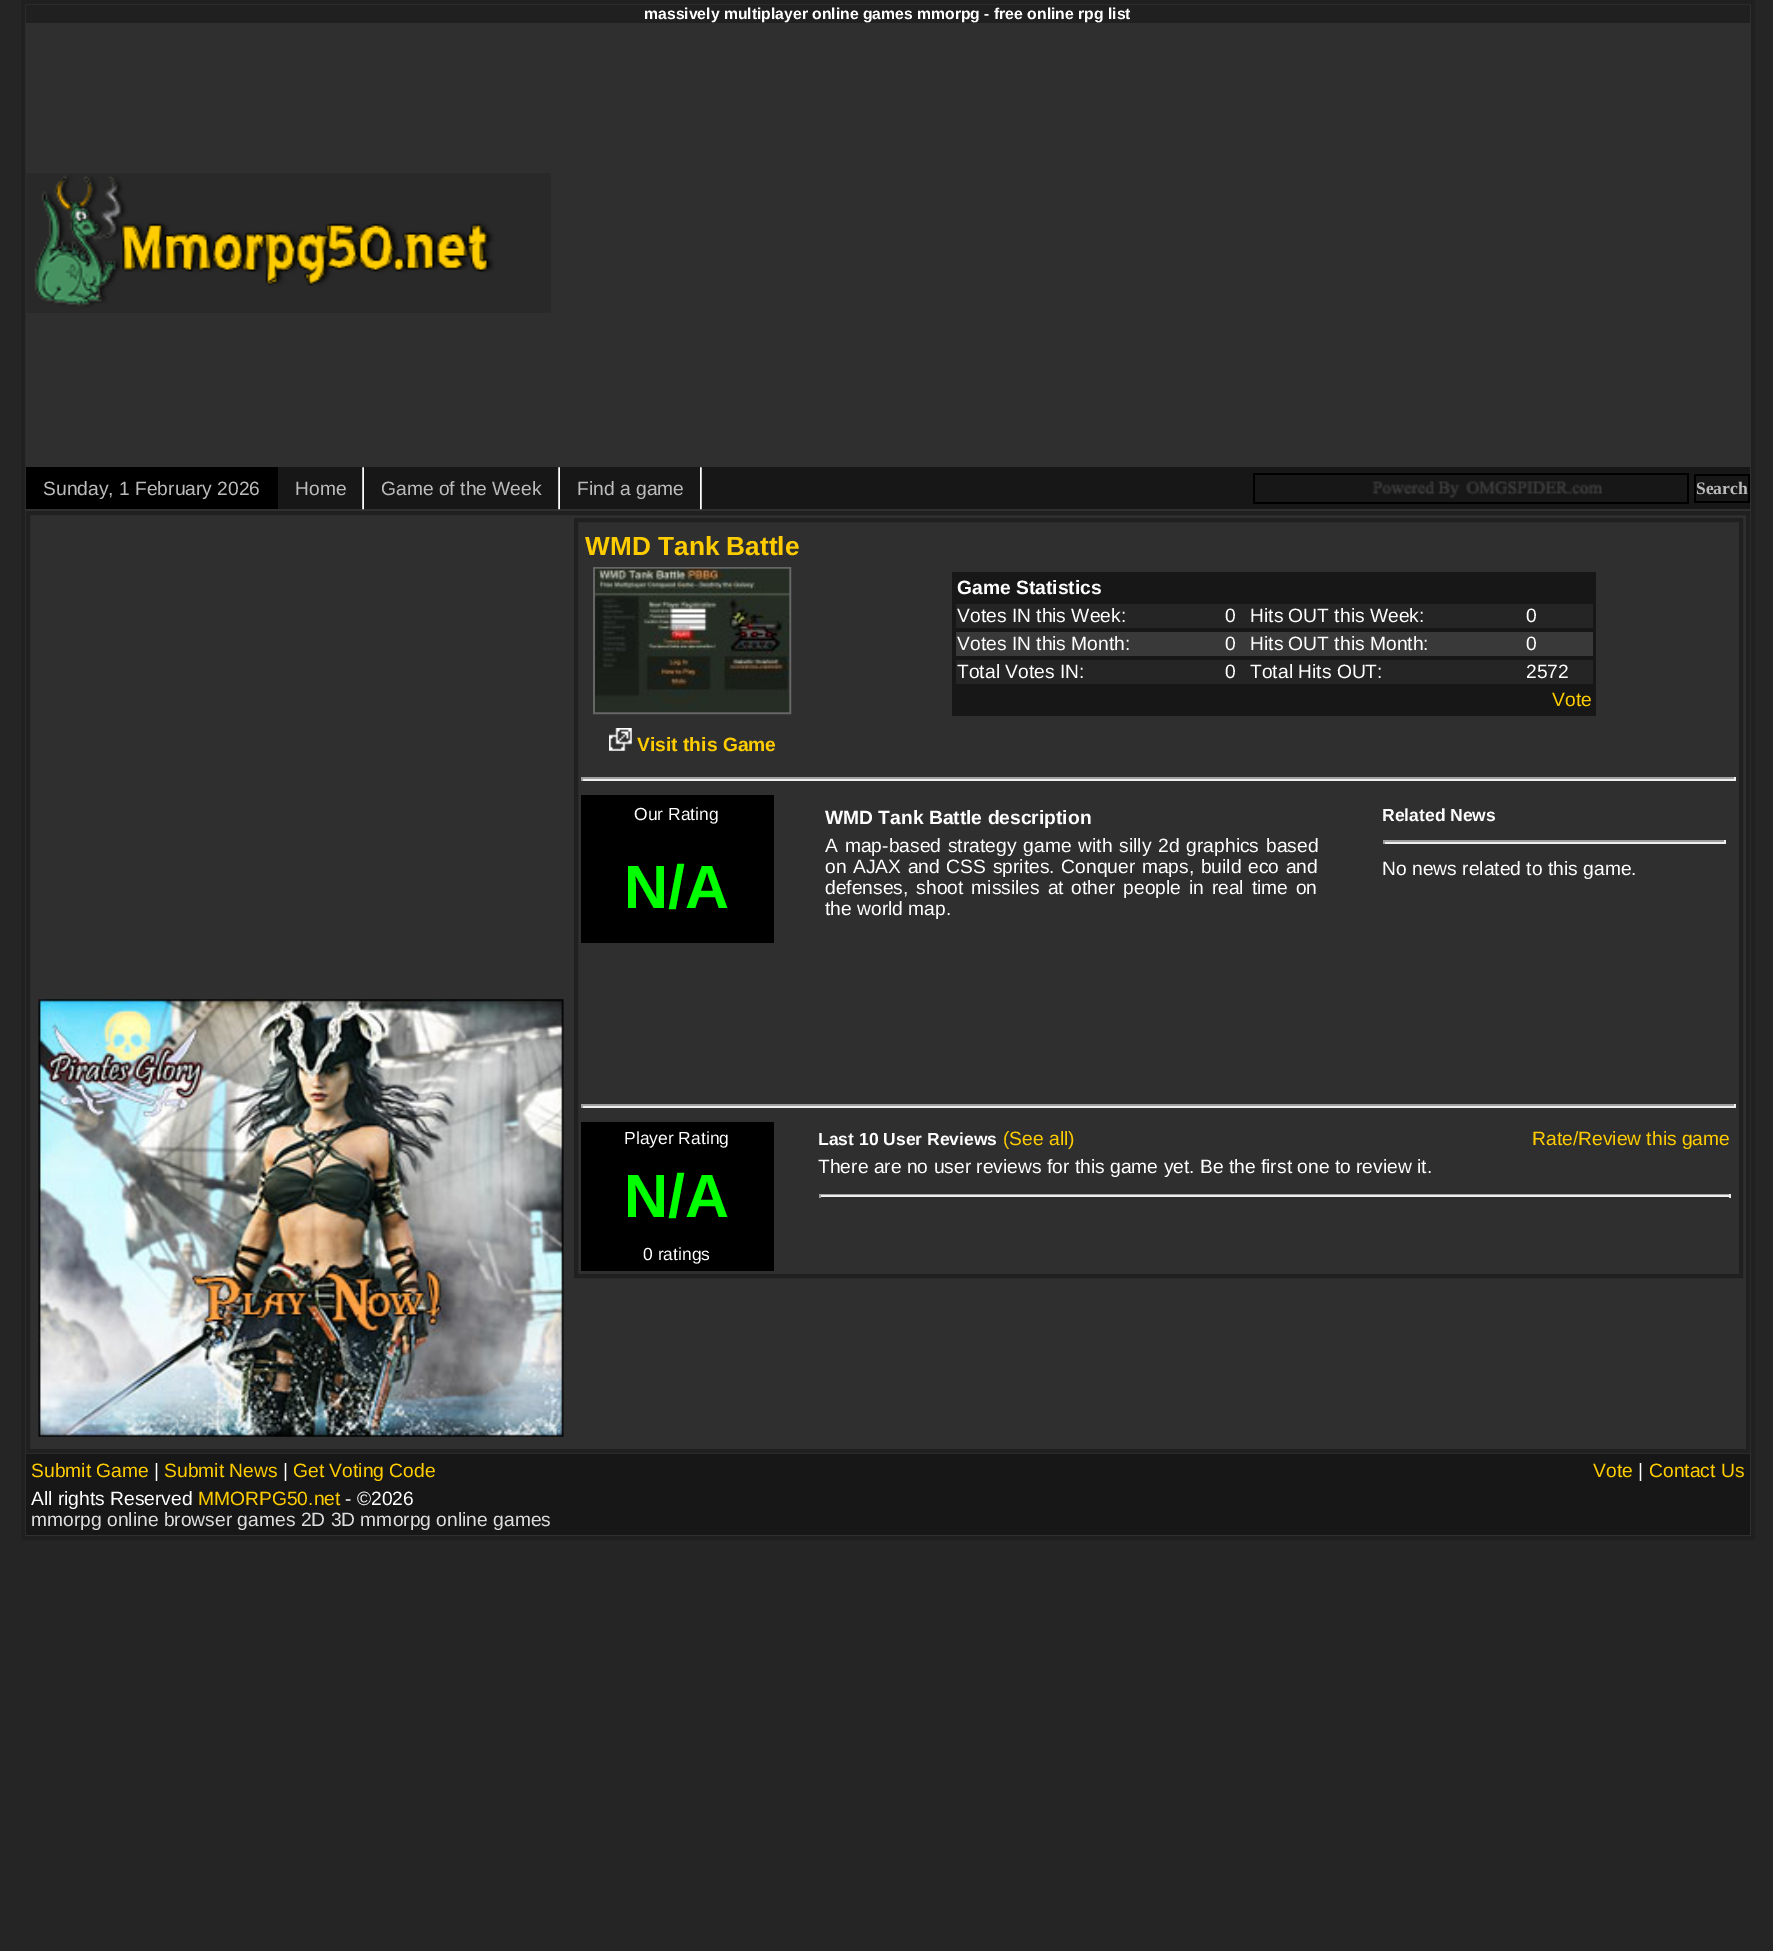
%!PS-Adobe-3.0
%%BoundingBox: 0 0 1773 1951
%%LanguageLevel: 3
%%Pages: 1
%%EndComments
%%BeginProlog
/drawimage { 5 dict begin { /h /w /y /x /name } { exch def } forall
  gsave x y translate w h scale
  w h 8 [w 0 0 h 0 0] name (r) file false 3 colorimage grestore end } def
%%EndProlog
%%BeginSetup
<< /PageSize [1773 1951] >> setpagedevice
%%EndSetup
%%Page: 1 1
0 1951 translate 1 -1 scale
4 setmiterlimit
0.145 setgray
0 0 1773 1951 rectfill
0.184 setgray
newpath 23 2 moveto 1753 2 lineto 1753 1538 lineto 23 1538 lineto closepath gsave fill grestore
0.125 setgray
4 setlinewidth
stroke
26 5 1724 18 rectfill
(images/1.raw) 26 173 525 140 drawimage
0.09 setgray
278 467 1472 42 rectfill
0 setgray
26 467 252 42 rectfill
(images/2.raw) 362 467 2 43 drawimage
(images/2.raw) 558 467 2 43 drawimage
(images/3.raw) 700 467 2 43 drawimage
(images/4.raw) 1372 481 231 18 drawimage
1253 473 436 2 rectfill
1687 473 2 31 rectfill
1253 502 436 2 rectfill
1253 473 2 31 rectfill
1694 474 56 2 rectfill
1748 474 2 28 rectfill
1694 501 56 2 rectfill
1694 474 2 28 rectfill
0.125 setgray
28 513 1720 938 rectstroke
(images/5.raw) 38 999 526 438 drawimage
576 520 1165 756 rectstroke
0.4 setgray
2 setlinewidth
594 568 196 145 rectstroke
(images/6.raw) 595 568 195 145 drawimage
(images/7.raw) 609 728 23 23 drawimage
0.09 setgray
952 572 644 144 rectfill
0.145 setgray
956 604 637 24 rectfill
0.224 setgray
956 632 637 24 rectfill
0.145 setgray
956 660 637 24 rectfill
0.624 setgray
581 777 1155 2 rectfill
0.933 setgray
1734 777 2 4 rectfill
581 779 1155 2 rectfill
0.624 setgray
581 777 2 4 rectfill
0 setgray
581 795 193 148 rectfill
0.624 setgray
1383 840 343 2 rectfill
0.933 setgray
1724 840 2 4 rectfill
1383 842 343 2 rectfill
0.624 setgray
1383 840 2 4 rectfill
581 1104 1155 2 rectfill
0.933 setgray
1734 1104 2 4 rectfill
581 1106 1155 2 rectfill
0.624 setgray
581 1104 2 4 rectfill
0 setgray
581 1122 193 149 rectfill
0.624 setgray
819 1194 912 1 rectfill
0.933 setgray
1729 1194 2 4 rectfill
819 1195 912 2 rectfill
0.624 setgray
819 1194 2 4 rectfill
0.09 setgray
26 1454 1724 81 rectfill
/LiberationSans-Bold [15.75 0 0 -15.75 0 0] selectfont
1 setgray
644 19 moveto (massively multiplayer online games mmorpg - free online rpg list) show
/LiberationSans-Regular [19.25 0 0 -19.25 0 0] selectfont
0.733 setgray
43 495 moveto (Sunday, 1 February 2026) show
295 495 moveto (Home) show
381 495 moveto (Game of the Week) show
577 495 moveto (Find a game) show
/LiberationSerif-Bold [17.5 0 0 -17.5 0 0] selectfont
1696 494 moveto (Search) show
/LiberationSans-Bold [26.25 0 0 -26.25 0 0] selectfont
1 0.8 0 setrgbcolor
585 555 moveto (WMD Tank Battle) show
/LiberationSans-Bold [19.25 0 0 -19.25 0 0] selectfont
637 751 moveto (Visit this Game) show
1 setgray
957 594 moveto (Game Statistics) show
/LiberationSans-Regular [19.25 0 0 -19.25 0 0] selectfont
957 622 moveto (Votes IN this Week:) show
1225 622 moveto (0) show
1250 622 moveto (Hits OUT this Week:) show
1526 622 moveto (0) show
957 650 moveto (Votes IN this Month:) show
1225 650 moveto (0) show
1250 650 moveto (Hits OUT this Month:) show
1526 650 moveto (0) show
957 678 moveto (Total Votes IN:) show
1225 678 moveto (0) show
1250 678 moveto (Total Hits OUT:) show
1526 678 moveto (2572) show
1 0.8 0 setrgbcolor
1552 706 moveto (Vote) show
/LiberationSans-Regular [17.5 0 0 -17.5 0 0] selectfont
1 setgray
634 820 moveto (Our Rating) show
/LiberationSans-Bold [61 0 0 -61 0 0] selectfont
0 1 0 setrgbcolor
624 908 moveto (N/A) show
/LiberationSans-Bold [19.25 0 0 -19.25 0 0] selectfont
1 setgray
825 824 moveto (WMD Tank Battle description) show
/LiberationSans-Regular [19.25 0 0 -19.25 0 0] selectfont
825 852 moveto 1.5 0 32 (A map-based strategy game with silly 2d graphics based) widthshow
825 873 moveto 1.25 0 32 (on AJAX and CSS sprites. Conquer maps, build eco and) widthshow
825 894 moveto 2.5 0 32 (defenses, shoot missiles at other people in real time on) widthshow
825 915 moveto (the world map.) show
/LiberationSans-Bold [17.5 0 0 -17.5 0 0] selectfont
1382 821 moveto (Related News) show
/LiberationSans-Regular [19.25 0 0 -19.25 0 0] selectfont
1382 875 moveto (No news related to this game.) show
/LiberationSans-Regular [17.5 0 0 -17.5 0 0] selectfont
624 1144 moveto (Player Rating) show
/LiberationSans-Bold [61 0 0 -61 0 0] selectfont
0 1 0 setrgbcolor
624 1217 moveto (N/A) show
/LiberationSans-Regular [17.5 0 0 -17.5 0 0] selectfont
1 setgray
643 1260 moveto (0 ratings) show
/LiberationSans-Bold [17.5 0 0 -17.5 0 0] selectfont
818 1145 moveto (Last 10 User Reviews) show
/LiberationSans-Regular [19.25 0 0 -19.25 0 0] selectfont
1 0.8 0 setrgbcolor
1003 1145 moveto (\(See all\)) show
1532 1145 moveto (Rate/Review this game) show
1 setgray
818 1173 moveto (There are no user reviews for this game yet. Be the first one to review it.) show
1 0.8 0 setrgbcolor
31 1477 moveto (Submit Game) show
1 setgray
154 1477 moveto (|) show
1 0.8 0 setrgbcolor
164 1477 moveto (Submit News) show
1 setgray
283 1477 moveto (|) show
1 0.8 0 setrgbcolor
293 1477 moveto (Get Voting Code) show
1593 1477 moveto (Vote) show
1 setgray
1638 1477 moveto (|) show
1 0.8 0 setrgbcolor
1649 1477 moveto (Contact Us) show
1 setgray
31 1505 moveto (All rights Reserved) show
1 0.8 0 setrgbcolor
198 1505 moveto (MMORPG50.net) show
1 setgray
345 1505 moveto (- ©2026) show
0.867 setgray
31 1526 moveto (mmorpg online browser games 2D 3D mmorpg online games) show
showpage
%%EOF
